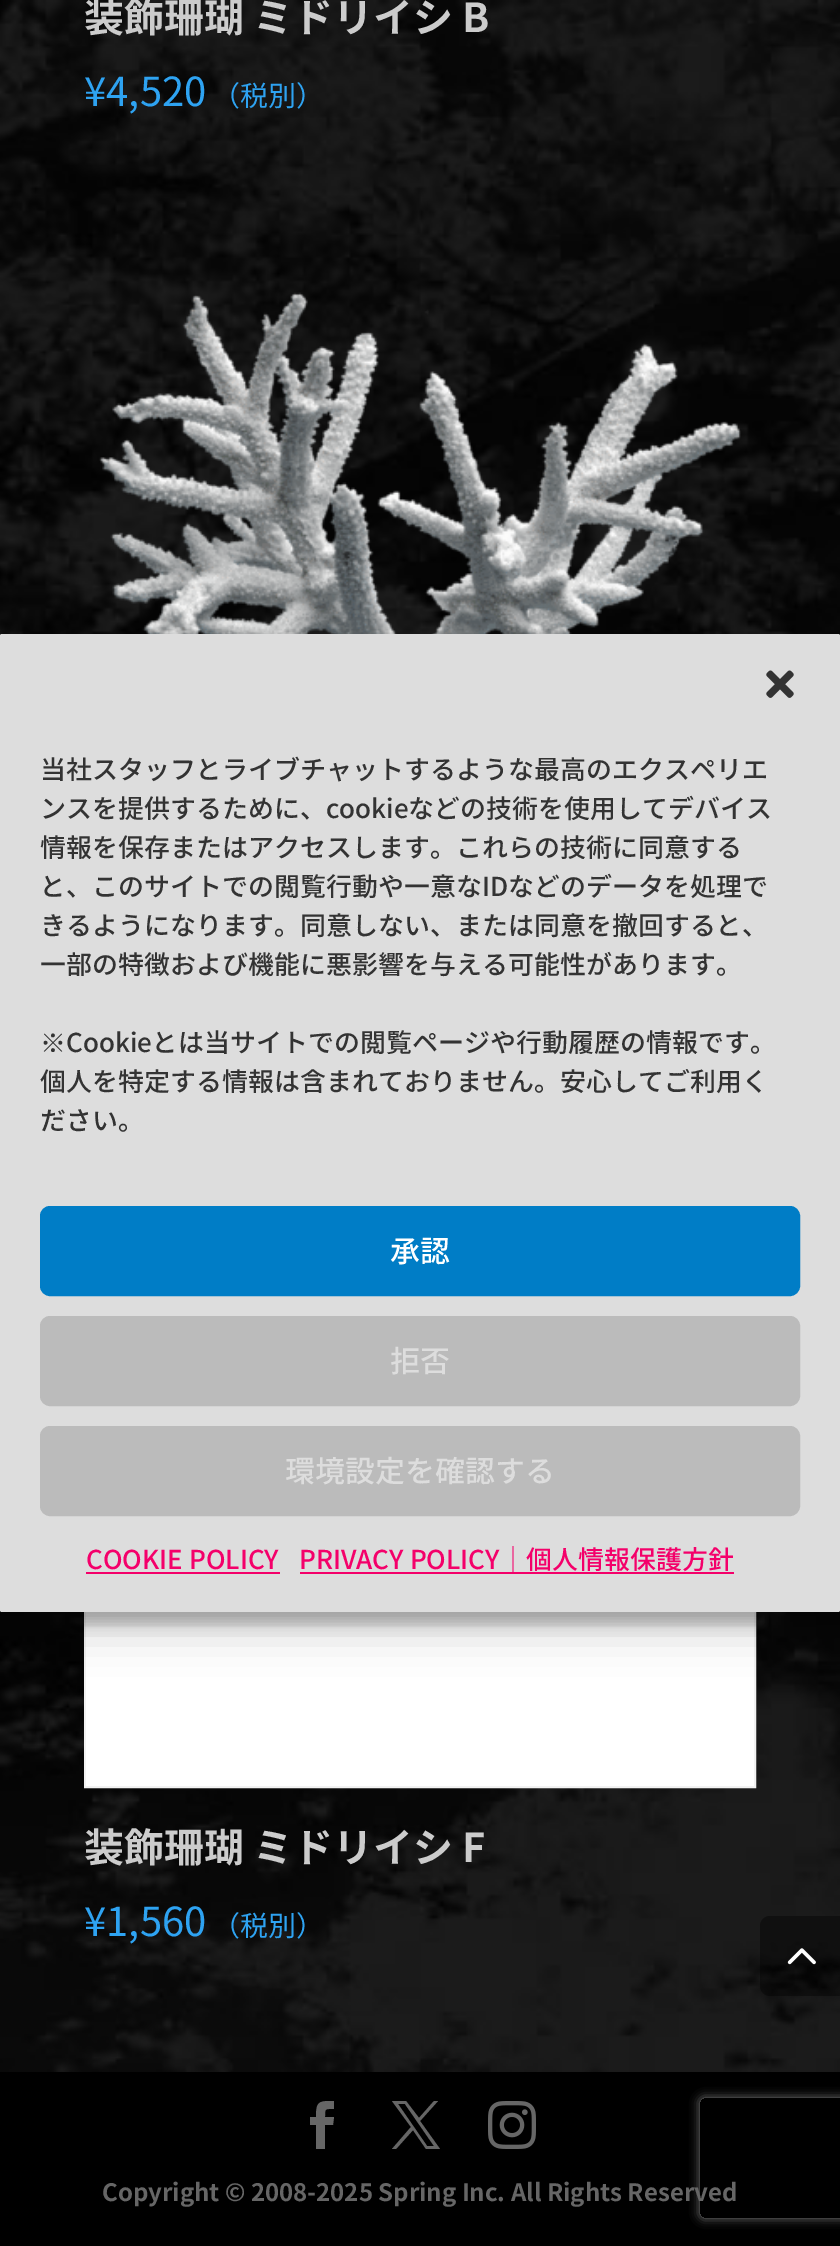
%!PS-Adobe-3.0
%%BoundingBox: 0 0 840 2246
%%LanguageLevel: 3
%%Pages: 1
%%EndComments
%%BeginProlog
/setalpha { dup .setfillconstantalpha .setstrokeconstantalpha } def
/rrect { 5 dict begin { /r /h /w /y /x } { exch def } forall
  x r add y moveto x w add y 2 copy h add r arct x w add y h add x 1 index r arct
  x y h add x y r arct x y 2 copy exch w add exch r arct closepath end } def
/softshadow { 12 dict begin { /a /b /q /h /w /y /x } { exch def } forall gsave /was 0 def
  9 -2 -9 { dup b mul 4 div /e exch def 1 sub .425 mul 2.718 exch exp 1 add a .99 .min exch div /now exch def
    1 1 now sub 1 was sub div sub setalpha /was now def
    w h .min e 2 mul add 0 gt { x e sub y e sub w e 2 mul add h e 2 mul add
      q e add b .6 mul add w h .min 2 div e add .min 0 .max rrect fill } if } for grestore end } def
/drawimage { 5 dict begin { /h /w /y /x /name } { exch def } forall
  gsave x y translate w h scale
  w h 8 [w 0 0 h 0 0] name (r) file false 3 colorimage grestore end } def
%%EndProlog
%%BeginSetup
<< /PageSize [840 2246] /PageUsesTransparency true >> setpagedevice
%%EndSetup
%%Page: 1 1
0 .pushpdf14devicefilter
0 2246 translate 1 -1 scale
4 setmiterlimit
1 setgray
0 0 840 2246 rectfill
(images/1.raw) 0 0 840 2072 drawimage
(images/2.raw) 99 292 642 342 drawimage
0.949 setgray
2 setlinewidth
85 1117 670 670 rectstroke
(images/3.raw) 86 1612 668 174 drawimage
0.4 setalpha
0 setgray
newpath 770 1916 moveto 840 1916 lineto 840 1996 lineto 770 1996 lineto 764.5 1996 760 1991.5 760 1986 curveto 760 1926 lineto 760 1920.5 764.5 1916 770 1916 curveto closepath fill
1 setalpha
(images/4.raw) 787 1948 29 17 drawimage
0 2072 840 174 rectfill
0.4 setgray
newpath 316 2149 moveto 325 2149 lineto 325 2125 lineto 333 2125 lineto 334 2117 lineto 325 2117 lineto 325 2108 325 2109 334 2109 curveto 334 2101 lineto 319 2101 316 2101 316 2117 curveto 310 2117 lineto 310 2125 lineto 316 2125 lineto closepath fill
newpath 392 2101 moveto 411 2127 lineto 392 2149 lineto 396 2149 lineto 413 2130 lineto 426 2149 lineto 440 2149 lineto 420 2121 lineto 438 2101 lineto 434 2101 lineto 419 2118 lineto 406 2101 lineto closepath 398 2104 moveto 405 2104 lineto 434 2146 lineto 427 2146 lineto closepath fill
(images/5.raw) 488 2101 48 48 drawimage
0 setgray
0 646 840 978 2 6 0.23 softshadow
0 654 840 978 2 20 0.19 softshadow
0.867 setgray
0 634 840 978 2 rrect fill
(images/6.raw) 766 670 28 28 drawimage
0 0.49 0.776 setrgbcolor
41 1207 758 88 9 rrect gsave fill grestore
stroke
0.733 setgray
41 1317 758 88 9 rrect gsave fill grestore
stroke
41 1427 758 88 9 rrect gsave fill grestore
stroke
0.957 0 0.416 setrgbcolor
86 1572 194 2 rectfill
300 1572 434 2 rectfill
gsave
newpath 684 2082 moveto 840 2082 lineto 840 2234 lineto 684 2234 lineto closepath 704 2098 moveto 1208 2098 lineto 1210 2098 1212 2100 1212 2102 curveto 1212 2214 lineto 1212 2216 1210 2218 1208 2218 curveto 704 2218 lineto 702 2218 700 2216 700 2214 curveto 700 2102 lineto 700 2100 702 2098 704 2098 curveto closepath eoclip newpath
0.502 setgray
700 2098 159 120 4 5 1 softshadow
grestore
/NotoSansJP-Bold [40 0 0 -40 0 0] selectfont
0.8 setgray
84 32 moveto (装飾珊瑚 ミドリイシ B) show
/NotoSansJP-Regular [40 0 0 -40 0 0] selectfont
0.18 0.639 0.949 setrgbcolor
84 106 moveto (¥4,520) show
/NotoSansJP-Regular [28 0 0 -28 0 0] selectfont
212 106 moveto (（税別）) show
/NotoSansJP-Bold [40 0 0 -40 0 0] selectfont
0.8 setgray
84 1862 moveto (装飾珊瑚 ミドリイシ F) show
/NotoSansJP-Regular [40 0 0 -40 0 0] selectfont
0.18 0.639 0.949 setrgbcolor
84 1936 moveto (¥1,560) show
/NotoSansJP-Regular [28 0 0 -28 0 0] selectfont
212 1936 moveto (（税別）) show
/NotoSansJP-Bold [24 0 0 -24 0 0] selectfont
0.4 setgray
102 2201 moveto (Copyright © 2008-2025 Spring Inc. All Rights Reserved) show
/NotoSansJP-Medium [26 0 0 -26 0 0] selectfont
0.2 setgray
40 779 moveto (当社スタッフとライブチャットするような最高のエクスペリエ) show
40 818 moveto (ンスを提供するために、cookieなどの技術を使用してデバイス) show
40 857 moveto (情報を保存またはアクセスします。これらの技術に同意する) show
40 896 moveto (と、このサイトでの閲覧行動や一意なIDなどのデータを処理で) show
40 935 moveto (きるようになります。同意しない、または同意を撤回すると、) show
40 974 moveto (一部の特徴および機能に悪影響を与える可能性があります。) show
/WenQuanYiZenHei-Medium [26 0 0 -26 0 0] selectfont
40 1052 moveto (※) show
/NotoSansJP-Medium [26 0 0 -26 0 0] selectfont
66 1052 moveto (Cookieとは当サイトでの閲覧ページや行動履歴の情報です。) show
40 1091 moveto (個人を特定する情報は含まれておりません。安心してご利用く) show
40 1130 moveto (ださい。) show
/NotoSansJP-Medium [30 0 0 -30 0 0] selectfont
1 setgray
390 1262 moveto (承認) show
0.867 setgray
390 1372 moveto (拒否) show
285 1482 moveto (環境設定を確認する) show
/NotoSansJP-Medium [26 0 0 -26 0 0] selectfont
0.957 0 0.416 setrgbcolor
86 1569 moveto (COOKIE POLICY) show
299 1569 moveto (PRIVACY POLICY｜個人情報保護方針) show
.poppdf14devicefilter showpage
%%EOF
